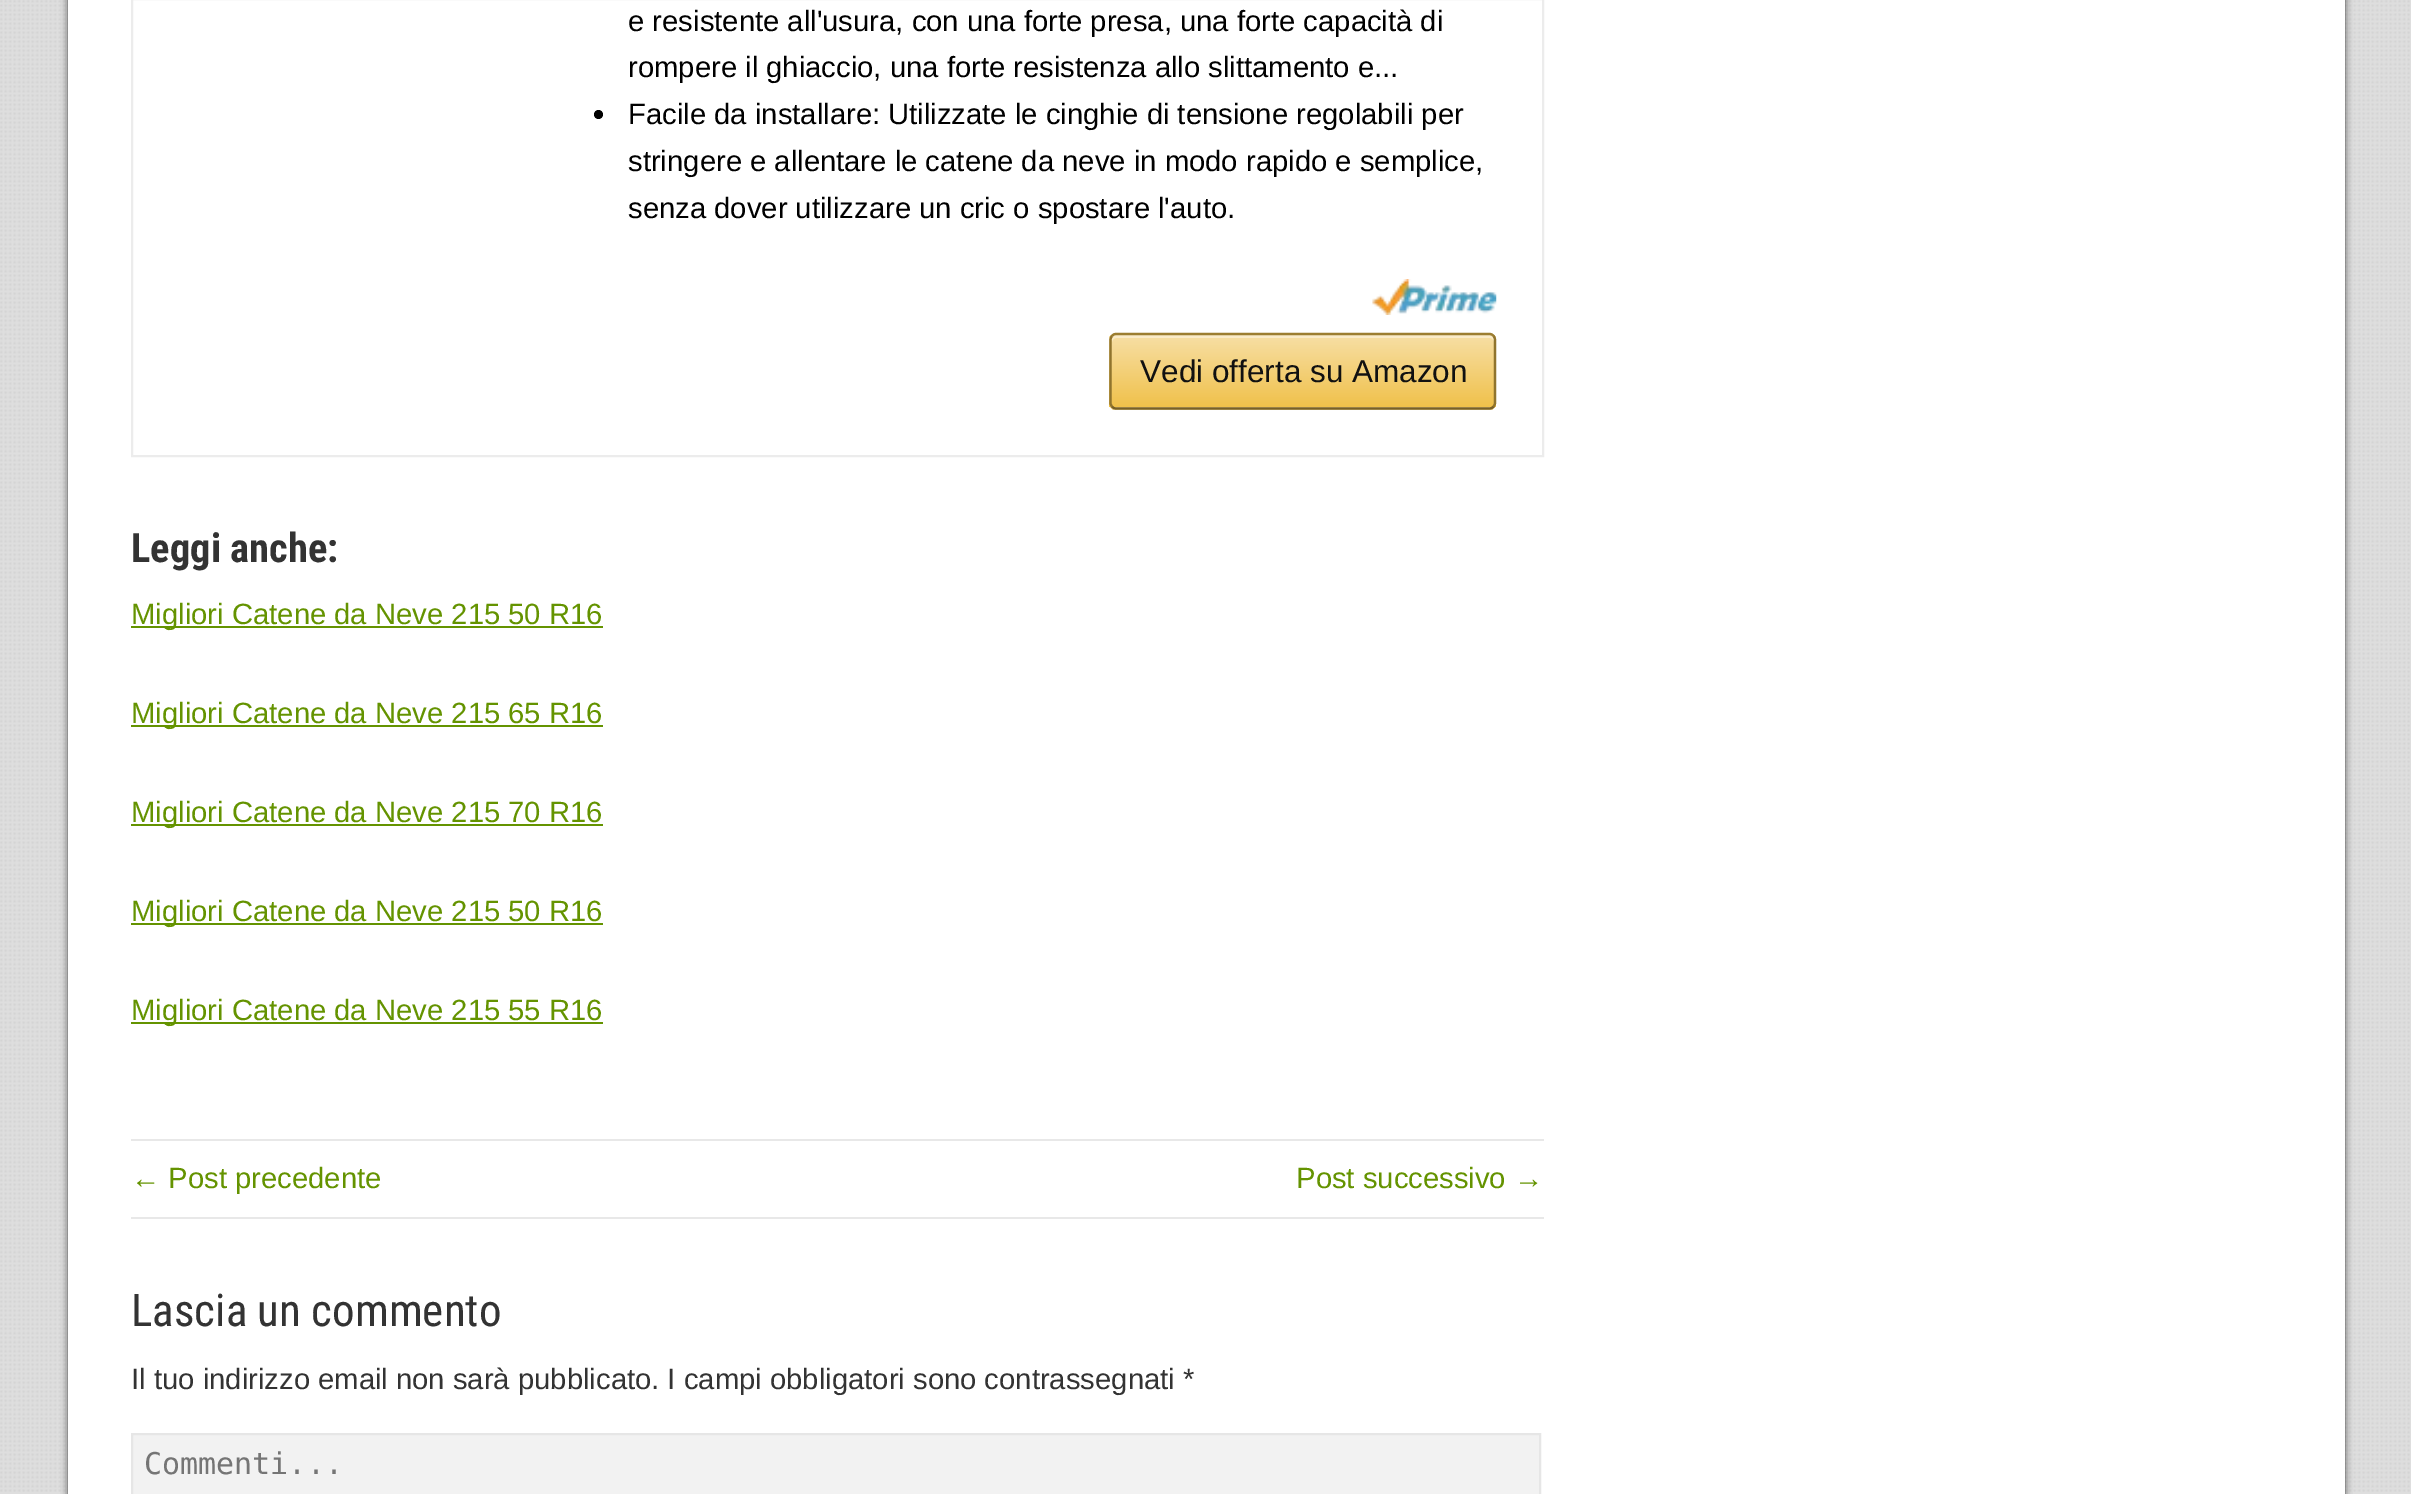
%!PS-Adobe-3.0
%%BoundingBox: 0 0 2411 1494
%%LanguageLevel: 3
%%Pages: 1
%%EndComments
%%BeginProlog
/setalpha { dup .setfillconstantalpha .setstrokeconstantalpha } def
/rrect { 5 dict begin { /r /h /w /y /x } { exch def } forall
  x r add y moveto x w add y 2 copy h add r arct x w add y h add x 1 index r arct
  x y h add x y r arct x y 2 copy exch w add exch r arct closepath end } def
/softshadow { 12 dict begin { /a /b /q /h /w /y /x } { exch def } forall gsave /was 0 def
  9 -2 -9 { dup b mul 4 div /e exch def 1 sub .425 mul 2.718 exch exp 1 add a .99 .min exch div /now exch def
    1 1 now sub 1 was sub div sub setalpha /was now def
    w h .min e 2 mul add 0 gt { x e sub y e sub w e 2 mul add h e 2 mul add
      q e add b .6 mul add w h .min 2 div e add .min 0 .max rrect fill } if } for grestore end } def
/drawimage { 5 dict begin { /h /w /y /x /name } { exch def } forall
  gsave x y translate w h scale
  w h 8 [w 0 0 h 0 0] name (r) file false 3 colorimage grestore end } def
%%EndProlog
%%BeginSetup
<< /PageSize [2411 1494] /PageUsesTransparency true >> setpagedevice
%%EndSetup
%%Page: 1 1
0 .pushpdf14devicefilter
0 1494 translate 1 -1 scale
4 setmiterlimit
0.871 setgray
0 0 2411 1494 rectfill
(images/1.raw) 0 0 2410 1492 drawimage
0.267 setgray
68 -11 2277 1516 0 3.5 1 softshadow
1 setgray
68 0 2277 1494 rectfill
0.925 setgray
2 setlinewidth
132 -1 1411 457 rectstroke
0 setgray
newpath 598.5 114.5 4.5 0 360 arc closepath fill
(images/2.raw) 1372 279 125 36 drawimage
gsave
1109 333 387 77 7 rrect clip newpath
gsave newpath 1109 335 moveto 1496 335 lineto 1496 407 lineto 1109 407 lineto closepath clip newpath
<< /ShadingType 2 /ColorSpace /DeviceRGB /Coords [1303 335 1303 407] /Extend [true true] /Function << /FunctionType 2 /Domain [0 1] /C0 [0.969 0.875 0.647] /C1 [0.941 0.757 0.294] /N 1 >> >> shfill grestore
gsave newpath 1109 407 moveto 1496 407 lineto 1496 410 lineto 1109 410 lineto closepath clip newpath
<< /ShadingType 2 /ColorSpace /DeviceRGB /Coords [1303 407 1303 479] /Extend [true true] /Function << /FunctionType 2 /Domain [0 1] /C0 [0.969 0.875 0.647] /C1 [0.941 0.757 0.294] /N 1 >> >> shfill grestore
grestore
0.4 setalpha
1 setgray
newpath 1116 338 moveto 1490 338 lineto 1492 338 1494 340 1494 342 curveto 1494 340 lineto 1494 337 1492 335 1489 335 curveto 1117 335 lineto 1114 335 1112 337 1112 340 curveto 1112 342 lineto 1112 340 1114 338 1116 338 curveto closepath fill
1 setalpha
0.612 0.494 0.192 setrgbcolor
2.2 setlinewidth
newpath 1112 336 moveto 1113 334.5 1114.5 334 1116 334 curveto 1489.5 334 lineto 1491 334 1492.5 334.5 1493.5 336 curveto stroke
0.565 0.455 0.176 setrgbcolor
newpath 1493.5 336 moveto 1494.5 337 1495 338.5 1495 340 curveto 1495 403 lineto 1495 404 1494.5 405.5 1493.5 406.5 curveto stroke
0.471 0.376 0.145 setrgbcolor
newpath 1493.5 406.5 moveto 1492.5 408 1491 408.5 1489.5 408.5 curveto 1116 408.5 lineto 1114.5 408.5 1113 408 1112 406.5 curveto stroke
0.565 0.455 0.176 setrgbcolor
newpath 1112 406.5 moveto 1111 405.5 1110.5 404 1110.5 403 curveto 1110.5 340 lineto 1110.5 338.5 1111 337 1112 336 curveto stroke
0.392 0.576 0 setrgbcolor
131 626 472 2 rectfill
131 725 472 2 rectfill
131 824 472 2 rectfill
131 923 472 2 rectfill
131 1022 472 2 rectfill
0.91 setgray
131 1139 1413 2 rectfill
131 1217 1413 2 rectfill
0.949 setgray
newpath 132 1434 moveto 1540 1434 lineto 1540 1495 lineto 132 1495 lineto closepath gsave fill grestore
0.902 setgray
2 setlinewidth
stroke
/LiberationSans-Regular [29.25 0 0 -29.25 0 0] selectfont
0 setgray
628 31 moveto (e resistente all'usura, con una forte presa, una forte capacità di) show
628 77 moveto (rompere il ghiaccio, una forte resistenza allo slittamento e...) show
628 124 moveto (Facile da installare: Utilizzate le cinghie di tensione regolabili per) show
628 171 moveto (stringere e allentare le catene da neve in modo rapido e semplice,) show
628 218 moveto (senza dover utilizzare un cric o spostare l'auto.) show
/LiberationSans-Regular [31.5 0 0 -31.5 0 0] selectfont
0.067 setgray
1140 382 moveto (Vedi offerta su Amazon) show
/RobotoCondensed-Bold [40.5 0 0 -40.5 0 0] selectfont
0.2 setgray
131 562 moveto (Leggi anche:) show
/LiberationSans-Regular [29.25 0 0 -29.25 0 0] selectfont
0.392 0.576 0 setrgbcolor
131 624 moveto (Migliori Catene da Neve 215 50 R16) show
131 723 moveto (Migliori Catene da Neve 215 65 R16) show
131 822 moveto (Migliori Catene da Neve 215 70 R16) show
131 921 moveto (Migliori Catene da Neve 215 50 R16) show
131 1020 moveto (Migliori Catene da Neve 215 55 R16) show
131 1188 moveto (← Post precedente) show
1296 1188 moveto (Post successivo →) show
/RobotoCondensed-Regular [45 0 0 -45 0 0] selectfont
0.2 setgray
131 1326 moveto (Lascia un commento) show
/LiberationSans-Regular [29.25 0 0 -29.25 0 0] selectfont
131 1389 moveto (Il tuo indirizzo email non sarà pubblicato. I campi obbligatori sono contrassegnati *) show
/DejaVuSansMono-Regular [30 0 0 -30 0 0] selectfont
0.459 setgray
144 1474 moveto (Commenti...) show
.poppdf14devicefilter showpage
%%EOF
